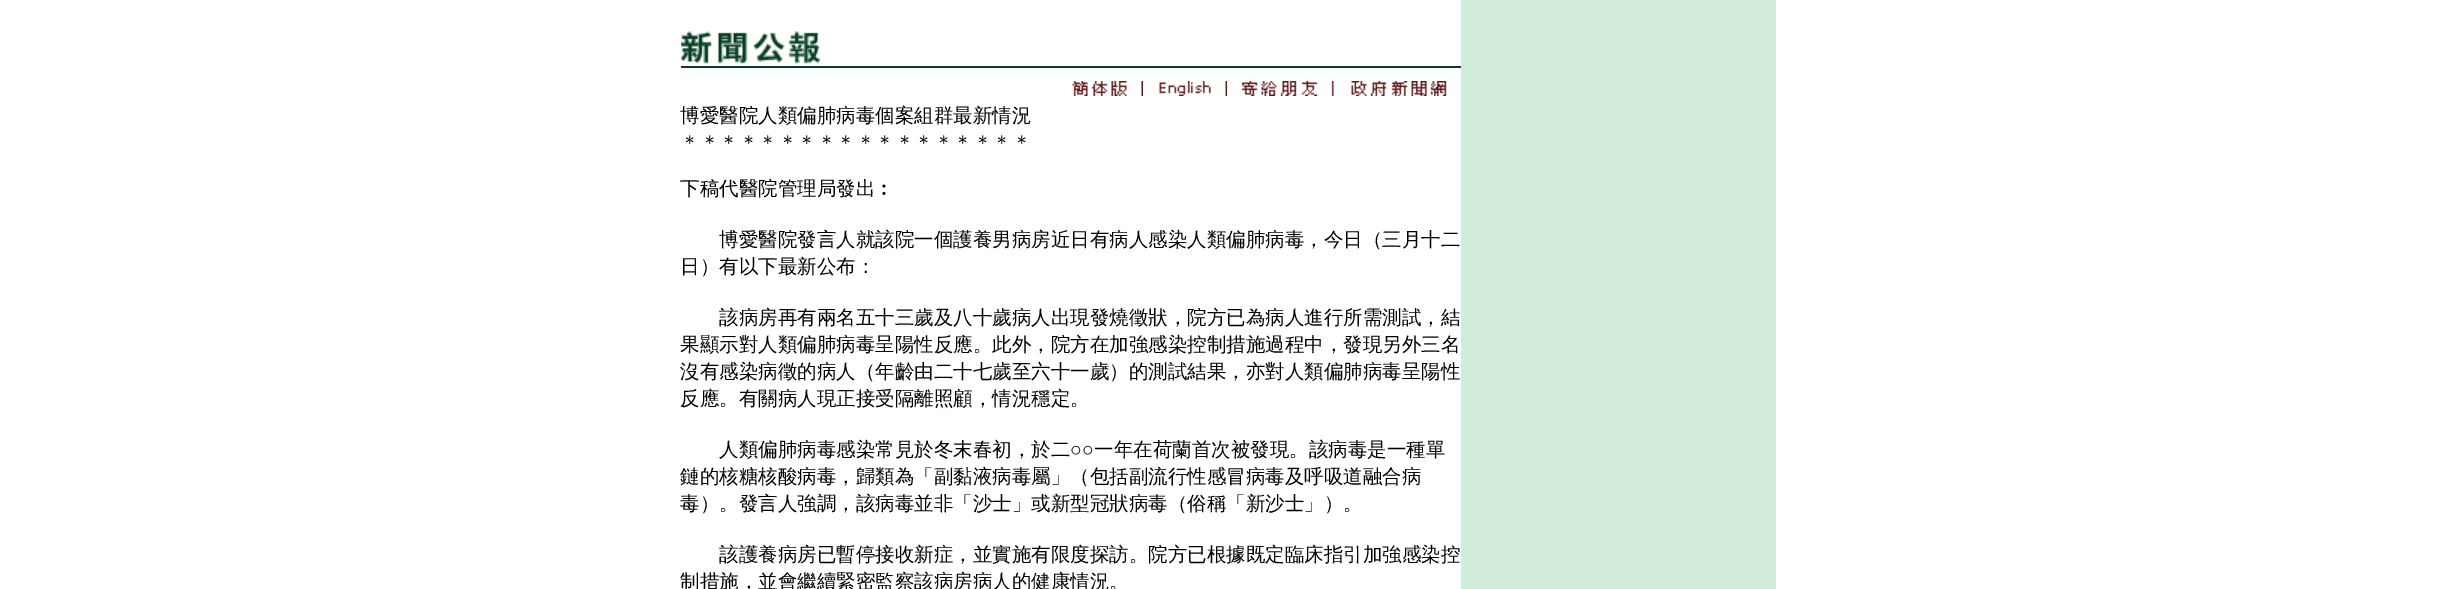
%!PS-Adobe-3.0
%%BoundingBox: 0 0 2455 589
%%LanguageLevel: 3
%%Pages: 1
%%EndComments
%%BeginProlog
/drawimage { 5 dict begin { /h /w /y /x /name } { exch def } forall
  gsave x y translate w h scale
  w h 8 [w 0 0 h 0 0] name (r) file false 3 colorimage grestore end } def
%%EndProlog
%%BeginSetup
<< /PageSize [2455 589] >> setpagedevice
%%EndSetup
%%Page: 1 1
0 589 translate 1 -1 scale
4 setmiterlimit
1 setgray
0 0 2455 589 rectfill
0.82 0.925 0.855 setrgbcolor
1461 0 315 589 rectfill
0.02 0.243 0.129 setrgbcolor
681 66 780 2 rectfill
(images/1.raw) 681 31 140 33 drawimage
(images/2.raw) 1072 81 71 15 drawimage
(images/3.raw) 1159 81 68 15 drawimage
(images/4.raw) 1241 81 93 15 drawimage
(images/5.raw) 1351 81 96 15 drawimage
/WenQuanYiZenHei-Medium [19.5 0 0 -19.5 0 0] selectfont
0 setgray
680 122 moveto (博愛醫院人類偏肺病毒個案組群最新情況) show
680 149 moveto (＊＊＊＊＊＊＊＊＊＊＊＊＊＊＊＊＊＊) show
680 195 moveto (下稿代醫院管理局發出︰) show
719 246 moveto (博愛醫院發言人就該院一個護養男病房近日有病人感染人類偏肺病毒，今日（三月十二) show
680 273 moveto (日）有以下最新公布：) show
719 324 moveto (該病房再有兩名五十三歲及八十歲病人出現發燒徵狀，院方已為病人進行所需測試，結) show
680 351 moveto (果顯示對人類偏肺病毒呈陽性反應。此外，院方在加強感染控制措施過程中，發現另外三名) show
680 378 moveto (沒有感染病徵的病人（年齡由二十七歲至六十一歲）的測試結果，亦對人類偏肺病毒呈陽性) show
680 405 moveto (反應。有關病人現正接受隔離照顧，情況穩定。) show
719 456 moveto (人類偏肺病毒感染常見於冬末春初，於二) show
/LiberationSerif-Regular [19.5 0 0 -19.5 0 0] selectfont
1070 456 moveto (○○) show
/WenQuanYiZenHei-Medium [19.5 0 0 -19.5 0 0] selectfont
1094 456 moveto (一年在荷蘭首次被發現。該病毒是一種單) show
680 483 moveto (鏈的核糖核酸病毒，歸類為「副黏液病毒屬」（包括副流行性感冒病毒及呼吸道融合病) show
680 510 moveto (毒）。發言人強調，該病毒並非「沙士」或新型冠狀病毒（俗稱「新沙士」）。) show
719 561 moveto (該護養病房已暫停接收新症，並實施有限度探訪。院方已根據既定臨床指引加強感染控) show
680 588 moveto (制措施，並會繼續緊密監察該病房病人的健康情況。) show
showpage
%%EOF
